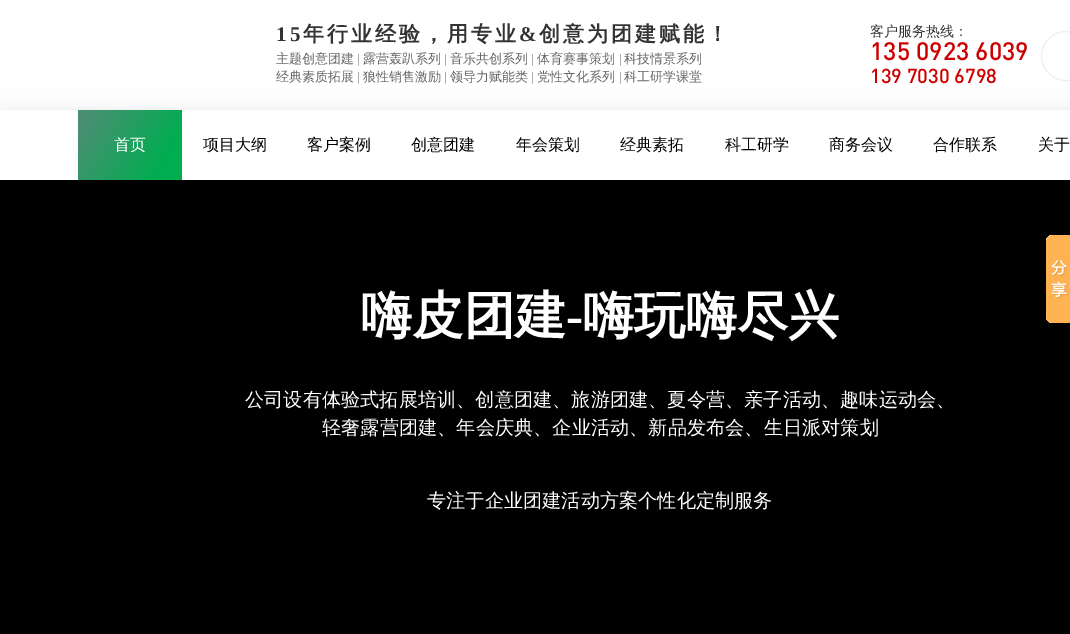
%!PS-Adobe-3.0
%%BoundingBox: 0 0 1070 634
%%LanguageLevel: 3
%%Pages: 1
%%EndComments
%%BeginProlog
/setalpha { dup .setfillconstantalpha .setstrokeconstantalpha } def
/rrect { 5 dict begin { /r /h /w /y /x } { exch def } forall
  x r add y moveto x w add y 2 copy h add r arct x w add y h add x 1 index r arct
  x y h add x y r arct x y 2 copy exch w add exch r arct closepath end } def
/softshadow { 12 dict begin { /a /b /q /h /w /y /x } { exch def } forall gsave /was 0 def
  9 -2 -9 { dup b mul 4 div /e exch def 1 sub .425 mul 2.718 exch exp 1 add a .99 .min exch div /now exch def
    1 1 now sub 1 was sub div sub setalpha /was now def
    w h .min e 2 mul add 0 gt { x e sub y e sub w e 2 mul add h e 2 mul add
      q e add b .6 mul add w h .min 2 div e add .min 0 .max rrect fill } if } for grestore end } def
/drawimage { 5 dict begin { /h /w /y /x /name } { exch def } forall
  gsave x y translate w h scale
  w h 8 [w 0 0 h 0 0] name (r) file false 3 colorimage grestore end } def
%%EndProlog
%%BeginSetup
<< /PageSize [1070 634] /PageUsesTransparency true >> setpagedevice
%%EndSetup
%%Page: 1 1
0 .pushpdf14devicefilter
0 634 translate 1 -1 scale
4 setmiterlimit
1 setgray
0 0 1070 634 rectfill
0.933 setgray
newpath 1066 56 24.5 0 360 arc closepath stroke
0 setgray
0 180 1070 454 rectfill
gsave
newpath 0 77 moveto 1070 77 lineto 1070 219 lineto 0 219 lineto closepath 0 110 moveto 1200 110 lineto 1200 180 lineto 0 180 lineto closepath eoclip newpath
5 117 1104 62 0 13 0.15 softshadow
grestore
gsave newpath 78 110 moveto 182 110 lineto 182 180 lineto 78 180 lineto closepath clip newpath
<< /ShadingType 2 /ColorSpace /DeviceRGB /Coords [76 114 184 176] /Extend [true true] /Function << /FunctionType 3 /Domain [0 1] /Functions [<< /FunctionType 2 /Domain [0 1] /C0 [0.282 0.565 0.443] /C1 [0.282 0.565 0.443] /N 1 >> << /FunctionType 2 /Domain [0 1] /C0 [0.282 0.565 0.443] /C1 [0.004 0.678 0.318] /N 1 >> << /FunctionType 2 /Domain [0 1] /C0 [0.004 0.678 0.318] /C1 [0.004 0.678 0.318] /N 1 >>] /Bounds [0.1 0.8] /Encode [0 1 0 1 0 1] >> >> shfill grestore
(images/1.raw) 1046 235 24 88 drawimage
/LiberationSerif-Bold [21 0 0 -21 0 0] selectfont
0.2 setgray
276 41 moveto 3 0 (15) ashow
/WenQuanYiZenHei-Bold [21 0 0 -21 0 0] selectfont
303 41 moveto 3 0 (年行业经验，用专业) ashow
/LiberationSerif-Bold [21 0 0 -21 0 0] selectfont
519 41 moveto 3 0 (&) ashow
/WenQuanYiZenHei-Bold [21 0 0 -21 0 0] selectfont
539 41 moveto 3 0 (创意为团建赋能！) ashow
/WenQuanYiZenHei-Medium [13 0 0 -13 0 0] selectfont
0.4 setgray
276 63 moveto (主题创意团建) show
/LiberationSerif-Regular [13 0 0 -13 0 0] selectfont
357 63 moveto (|) show
/WenQuanYiZenHei-Medium [13 0 0 -13 0 0] selectfont
363 63 moveto (露营轰趴系列) show
/LiberationSerif-Regular [13 0 0 -13 0 0] selectfont
444 63 moveto (|) show
/WenQuanYiZenHei-Medium [13 0 0 -13 0 0] selectfont
450 63 moveto (音乐共创系列) show
/LiberationSerif-Regular [13 0 0 -13 0 0] selectfont
531 63 moveto (|) show
/WenQuanYiZenHei-Medium [13 0 0 -13 0 0] selectfont
537 63 moveto (体育赛事策划) show
/LiberationSerif-Regular [13 0 0 -13 0 0] selectfont
619 63 moveto (|) show
/WenQuanYiZenHei-Medium [13 0 0 -13 0 0] selectfont
624 63 moveto (科技情景系列) show
276 81 moveto (经典素质拓展) show
/LiberationSerif-Regular [13 0 0 -13 0 0] selectfont
357 81 moveto (|) show
/WenQuanYiZenHei-Medium [13 0 0 -13 0 0] selectfont
363 81 moveto (狼性销售激励) show
/LiberationSerif-Regular [13 0 0 -13 0 0] selectfont
444 81 moveto (|) show
/WenQuanYiZenHei-Medium [13 0 0 -13 0 0] selectfont
450 81 moveto (领导力赋能类) show
/LiberationSerif-Regular [13 0 0 -13 0 0] selectfont
531 81 moveto (|) show
/WenQuanYiZenHei-Medium [13 0 0 -13 0 0] selectfont
537 81 moveto (党性文化系列) show
/LiberationSerif-Regular [13 0 0 -13 0 0] selectfont
619 81 moveto (|) show
/WenQuanYiZenHei-Medium [13 0 0 -13 0 0] selectfont
624 81 moveto (科工研学课堂) show
/WenQuanYiZenHei-Medium [14 0 0 -14 0 0] selectfont
0.2 setgray
870 36 moveto (客户服务热线：) show
/DIN-Medium [25 0 0 -25 0 0] selectfont
0.8 0 0 setrgbcolor
870 60 moveto (135 0923 6039) show
/DIN-Medium [20 0 0 -20 0 0] selectfont
870 83 moveto (139 7030 6798) show
/WenQuanYiZenHei-Medium [16 0 0 -16 0 0] selectfont
1 setgray
114 150 moveto (首页) show
0 setgray
203 150 moveto (项目大纲) show
307 150 moveto (客户案例) show
411 150 moveto (创意团建) show
516 150 moveto (年会策划) show
620 150 moveto (经典素拓) show
725 150 moveto (科工研学) show
829 150 moveto (商务会议) show
933 150 moveto (合作联系) show
1038 150 moveto (关于) show
/WenQuanYiZenHei-Bold [51.25 0 0 -51.25 0 0] selectfont
1 setgray
361 333 moveto (嗨皮团建) show
/LiberationSerif-Bold [51.25 0 0 -51.25 0 0] selectfont
566 333 moveto (-) show
/WenQuanYiZenHei-Bold [51.25 0 0 -51.25 0 0] selectfont
583 333 moveto (嗨玩嗨尽兴) show
/WenQuanYiZenHei-Medium [19.2 0 0 -19.2 0 0] selectfont
245 406 moveto (公司设有体验式拓展培训、创意团建、旅游团建、夏令营、亲子活动、趣味运动会、) show
322 434 moveto (轻奢露营团建、年会庆典、企业活动、新品发布会、生日派对策划) show
427 507 moveto (专注于企业团建活动方案个性化定制服务) show
.poppdf14devicefilter showpage
%%EOF
